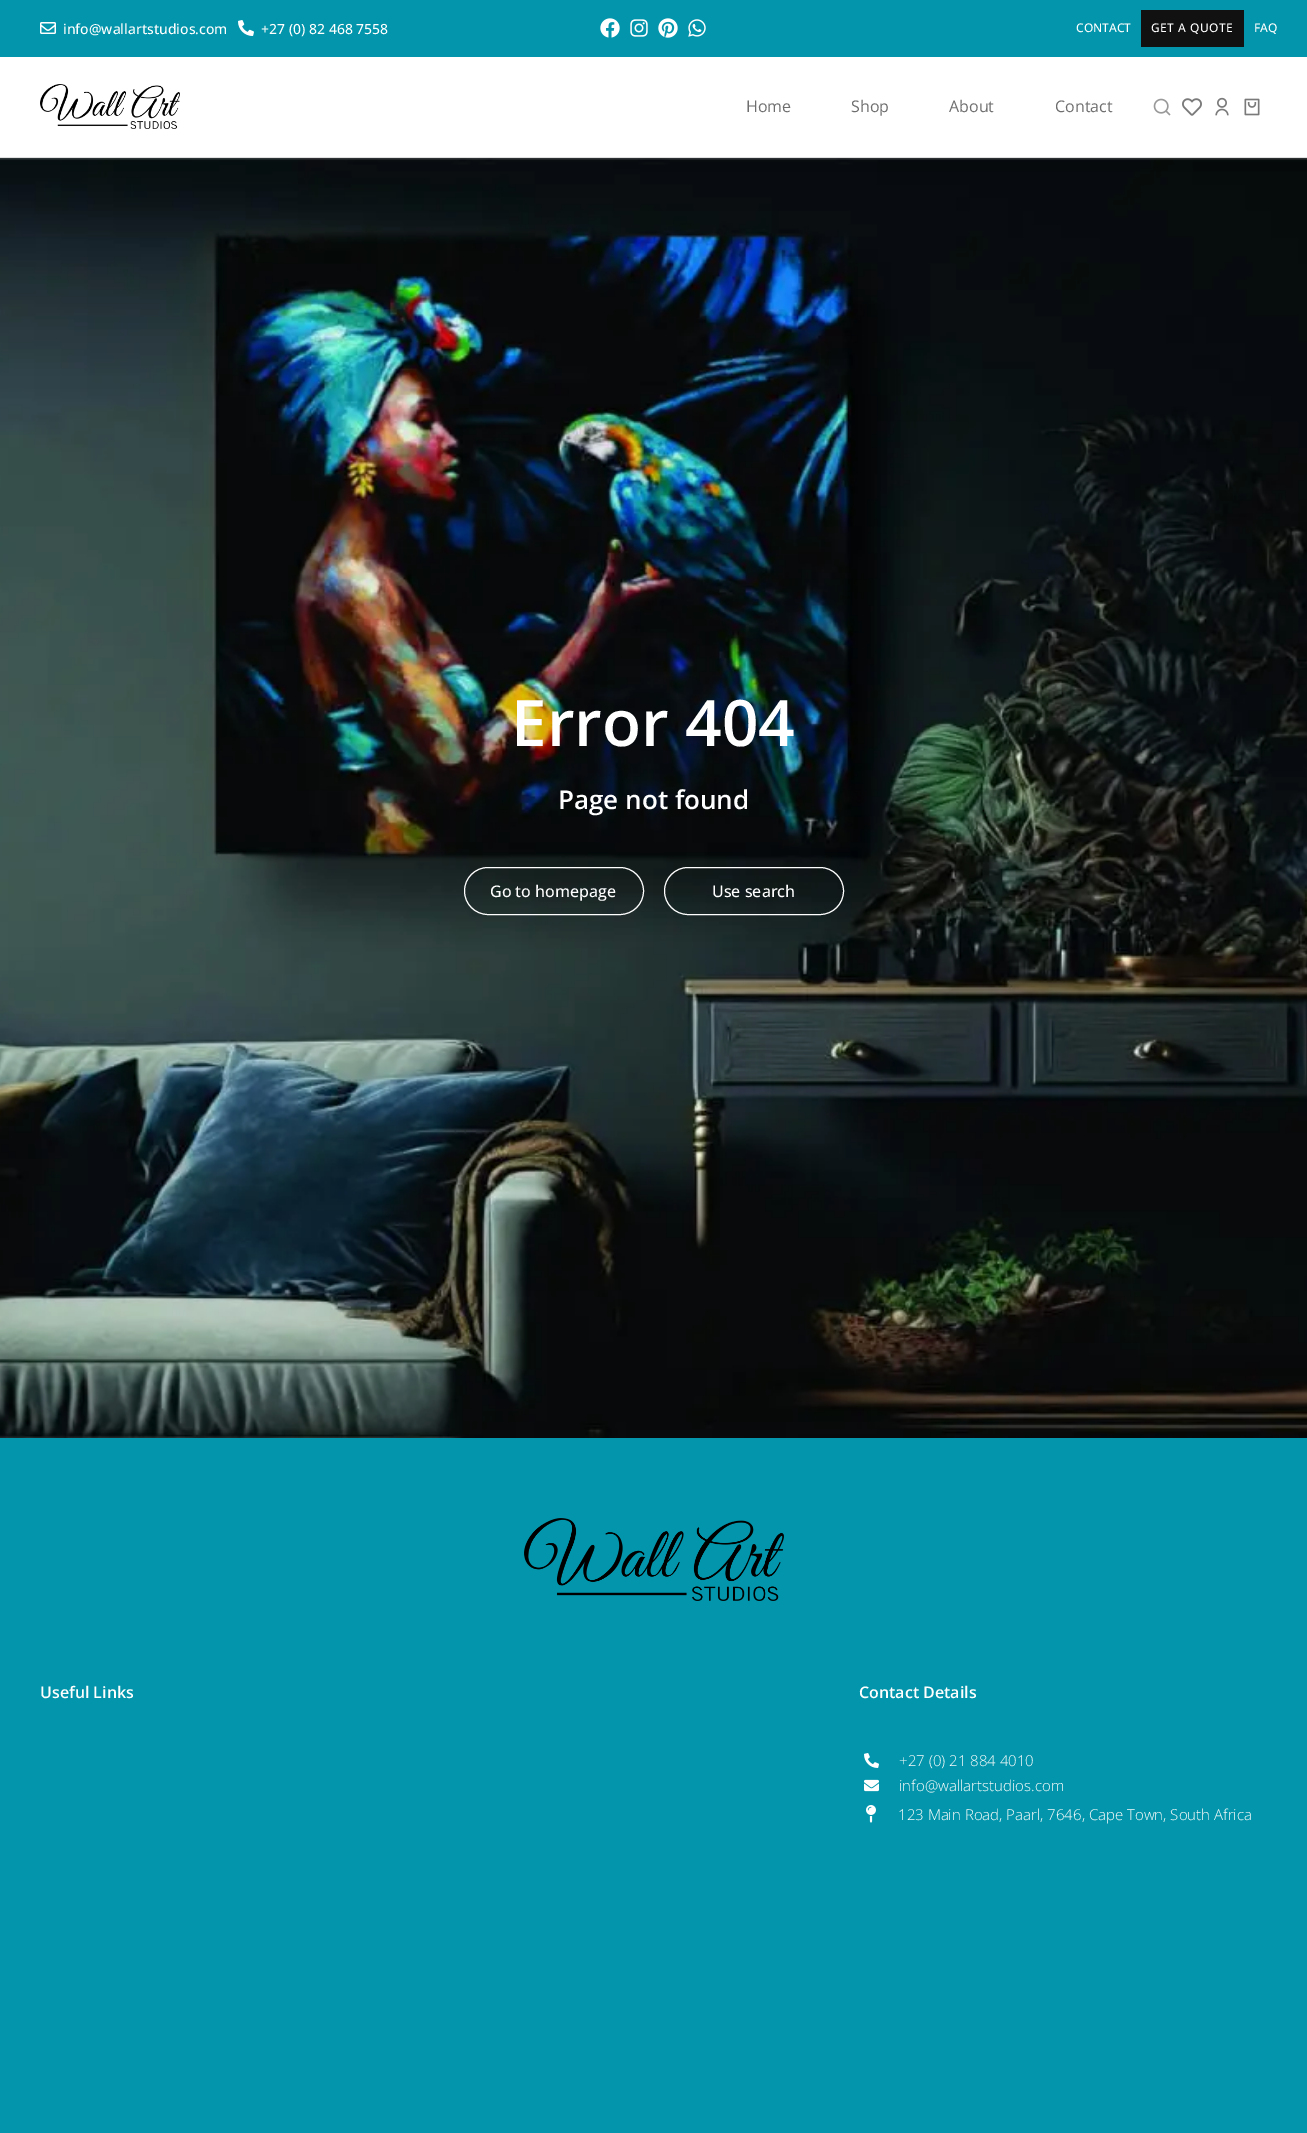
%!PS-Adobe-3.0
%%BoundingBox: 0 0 1307 2133
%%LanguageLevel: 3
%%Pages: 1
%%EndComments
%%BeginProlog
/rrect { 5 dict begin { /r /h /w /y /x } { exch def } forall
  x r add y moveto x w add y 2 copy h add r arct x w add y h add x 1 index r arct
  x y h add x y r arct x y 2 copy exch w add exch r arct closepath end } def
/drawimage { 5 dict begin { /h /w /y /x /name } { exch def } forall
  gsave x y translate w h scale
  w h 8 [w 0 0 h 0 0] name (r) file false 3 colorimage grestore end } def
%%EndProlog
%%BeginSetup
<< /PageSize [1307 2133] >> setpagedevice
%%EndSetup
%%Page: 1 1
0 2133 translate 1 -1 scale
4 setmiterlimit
1 setgray
0 0 1307 2133 rectfill
0.012 0.584 0.671 setrgbcolor
0 0 1307 57 rectfill
(images/1.raw) 40 22 16 12 drawimage
(images/2.raw) 238 20 16 16 drawimage
(images/3.raw) 600 18 20 20 drawimage
(images/4.raw) 630 19 18 18 drawimage
(images/5.raw) 658 18 20 20 drawimage
(images/6.raw) 688 19 18 18 drawimage
0.067 setgray
1141 10 103 37 rectfill
0.878 setgray
0 157 1307 1 rectfill
(images/7.raw) 40 84 140 45 drawimage
(images/8.raw) 1153 98 18 18 drawimage
(images/9.raw) 1182 98 20 18 drawimage
(images/10.raw) 1215 97 14 19 drawimage
(images/11.raw) 1244 98 16 18 drawimage
(images/12.raw) 0 158 1307 1280 drawimage
1 setgray
464.5 867.5 179 47 23.5 rrect stroke
664.5 867.5 179 47 23.5 rrect stroke
0.012 0.584 0.671 setrgbcolor
0 1438 1307 695 rectfill
(images/13.raw) 524 1518 260 83 drawimage
(images/14.raw) 864 1753 15 15 drawimage
(images/15.raw) 864 1779 15 13 drawimage
(images/16.raw) 866 1805 10 18 drawimage
/OpenSans-Medium [14 0 0 -14 0 0] selectfont
1 setgray
63 34 moveto (info@wallartstudios.com) show
261 34 moveto (+27 \(0\) 82 468 7558) show
/OpenSans-Medium [12 0 0 -12 0 0] selectfont
1076 32 moveto (CONTACT) show
1151 32 moveto 0.5 0 (GET A QUOTE) ashow
1254 32 moveto (FAQ) show
/OpenSans-Regular [16 0 0 -16 0 0] selectfont
0.431 setgray
746 112 moveto (Home) show
851 112 moveto (Shop) show
949 112 moveto (About) show
1055 112 moveto (Contact) show
/OpenSans-SemiBold [64 0 0 -64 0 0] selectfont
1 setgray
511 746 moveto (Error 404) show
/OpenSans-SemiBold [26 0 0 -26 0 0] selectfont
558 809 moveto (Page not found) show
/OpenSans-Medium [16 0 0 -16 0 0] selectfont
490 897 moveto (Go to homepage) show
712 897 moveto (Use search) show
/OpenSans-SemiBold [16 0 0 -16 0 0] selectfont
40 1698 moveto (Useful Links) show
859 1698 moveto (Contact Details) show
/OpenSans-Light [15 0 0 -15 0 0] selectfont
899 1766 moveto (+27 \(0\) 21 884 4010) show
899 1791 moveto (info@wallartstudios.com) show
898 1820 moveto (123 Main Road, Paarl, 7646, Cape Town, South Africa) show
showpage
%%EOF
